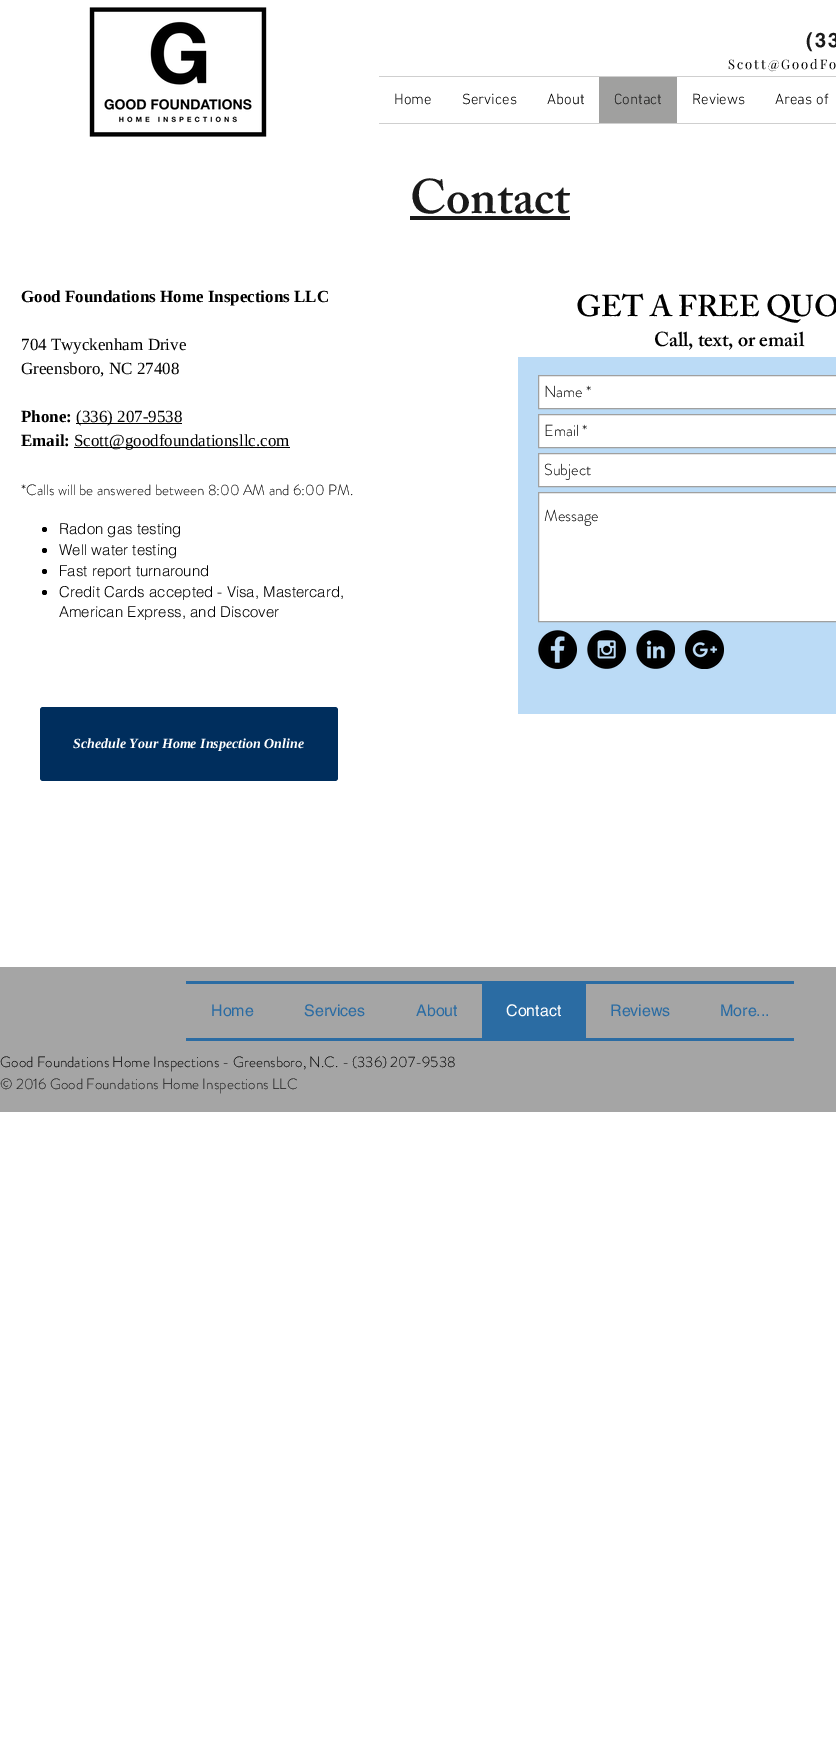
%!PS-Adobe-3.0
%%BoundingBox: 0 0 836 1750
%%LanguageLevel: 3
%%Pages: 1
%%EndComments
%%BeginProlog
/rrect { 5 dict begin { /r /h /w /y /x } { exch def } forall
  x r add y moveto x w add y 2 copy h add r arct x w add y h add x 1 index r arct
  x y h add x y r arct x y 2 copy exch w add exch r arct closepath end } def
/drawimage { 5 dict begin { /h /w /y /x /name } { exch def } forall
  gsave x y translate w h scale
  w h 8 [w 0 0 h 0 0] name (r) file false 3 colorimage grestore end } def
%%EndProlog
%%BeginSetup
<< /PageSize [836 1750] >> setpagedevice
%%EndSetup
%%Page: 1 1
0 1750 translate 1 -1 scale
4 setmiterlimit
1 setgray
0 0 836 1750 rectfill
(images/1.raw) 89 7 178 130 drawimage
0.812 setgray
379 76 457 1 rectfill
379 123 457 1 rectfill
0.627 0.627 0.624 setrgbcolor
599 77 78 46 rectfill
0.102 setgray
410 216 160 4 rectfill
0 setgray
76 423 106 1 rectfill
74 447 216 1 rectfill
newpath 44.5 529.5 2.5 0 360 arc closepath fill
newpath 44.5 550.5 2.5 0 360 arc closepath fill
newpath 44.5 571.5 2.5 0 360 arc closepath fill
newpath 44.5 592.5 2.5 0 360 arc closepath fill
0.733 0.859 0.965 setrgbcolor
518 357 318 357 rectfill
1 setgray
newpath 538.5 375.5 moveto 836.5 375.5 lineto 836.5 408.5 lineto 538.5 408.5 lineto closepath gsave fill grestore
0.627 0.627 0.624 setrgbcolor
stroke
1 setgray
newpath 538.5 414.5 moveto 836.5 414.5 lineto 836.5 447.5 lineto 538.5 447.5 lineto closepath gsave fill grestore
0.627 0.627 0.624 setrgbcolor
stroke
1 setgray
newpath 538.5 453.5 moveto 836.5 453.5 lineto 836.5 486.5 lineto 538.5 486.5 lineto closepath gsave fill grestore
0.627 0.627 0.624 setrgbcolor
stroke
1 setgray
newpath 538.5 492.5 moveto 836.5 492.5 lineto 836.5 621.5 lineto 538.5 621.5 lineto closepath gsave fill grestore
0.627 0.627 0.624 setrgbcolor
stroke
(images/2.raw) 538 630 39 39 drawimage
(images/3.raw) 587 630 39 39 drawimage
(images/4.raw) 636 630 39 39 drawimage
(images/5.raw) 685 630 39 39 drawimage
0 0.18 0.365 setrgbcolor
40 707 298 74 3 rrect fill
0.647 setgray
0 967 836 145 rectfill
0.169 0.424 0.639 setrgbcolor
186 981 608 3 rectfill
186 1038 608 3 rectfill
482 984 104 54 rectfill
/helvetica-Bold [20 0 0 -20 0 0] selectfont
0.102 setgray
806 47 moveto 2 0 (\(33) ashow
/PlayfairDisplay-Regular [13 0 0 -13 0 0] selectfont
0 setgray
728 69 moveto 2 0 (Scott@GoodFo) ashow
/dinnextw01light-Light [15 0 0 -15 0 0] selectfont
394 104 moveto (Home) show
462 104 moveto (Services) show
547 104 moveto (About) show
0.102 setgray
614 104 moveto (Contact) show
0 setgray
692 104 moveto (Reviews) show
775 104 moveto (Areas of) show
/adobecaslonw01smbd-SemiBold [48 0 0 -48 0 0] selectfont
0.102 setgray
410 213 moveto (Contact) show
/LiberationSerif-Bold [17 0 0 -17 0 0] selectfont
0 setgray
21 302 moveto (Good Foundations Home Inspections LLC) show
/LiberationSerif-Regular [17 0 0 -17 0 0] selectfont
21 350 moveto (704 Twyckenham Drive) show
21 374 moveto (Greensboro, NC 27408) show
/LiberationSerif-Bold [17 0 0 -17 0 0] selectfont
21 422 moveto (Phone:) show
/LiberationSerif-Regular [17 0 0 -17 0 0] selectfont
76 422 moveto (\(336\) 207-9538) show
/LiberationSerif-Bold [17 0 0 -17 0 0] selectfont
21 446 moveto (Email:) show
/LiberationSerif-Regular [17 0 0 -17 0 0] selectfont
74 446 moveto (Scott@goodfoundationsllc.com) show
/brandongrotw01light-Light [15 0 0 -15 0 0] selectfont
21 495 moveto (*Calls will be answered between 8:00 AM and 6:00 PM.) show
/helvetica-Light [15 0 0 -15 0 0] selectfont
59 534 moveto (Radon gas testing) show
59 555 moveto (Well water testing) show
59 576 moveto (Fast report turnaround) show
59 597 moveto (Credit Cards accepted - Visa, Mastercard,) show
59 617 moveto (American Express, and Discover) show
/adobecaslonw01smbd-SemiBold [30 0 0 -30 0 0] selectfont
576 316 moveto (GET A FREE QUO) show
/adobecaslonw01smbd-SemiBold [20 0 0 -20 0 0] selectfont
654 346 moveto (Call, text, or email) show
/brandongrotw01light-Light [16 0 0 -16 0 0] selectfont
544 397 moveto (Name *) show
544 436 moveto (Email *) show
544 475 moveto (Subject) show
544 521 moveto (Message) show
/LiberationSerif-BoldItalic [14 0 0 -14 0 0] selectfont
1 setgray
73 748 moveto (Schedule Your Home Inspection Online) show
/helvetica-Regular [16 0 0 -16 0 0] selectfont
0.169 0.424 0.639 setrgbcolor
211 1016 moveto (Home) show
304 1016 moveto (Services) show
416 1016 moveto (About) show
1 setgray
506 1016 moveto (Contact) show
0.169 0.424 0.639 setrgbcolor
610 1016 moveto (Reviews) show
720 1016 moveto (More...) show
/brandongrotw01light-Light [15 0 0 -15 0 0] selectfont
0 setgray
0 1067 moveto (Good Foundations Home Inspections - Greensboro, N.C. - \(336\) 207-9538) show
0.102 setgray
0 1089 moveto (© 2016 Good Foundations Home Inspections LLC) show
showpage
%%EOF
